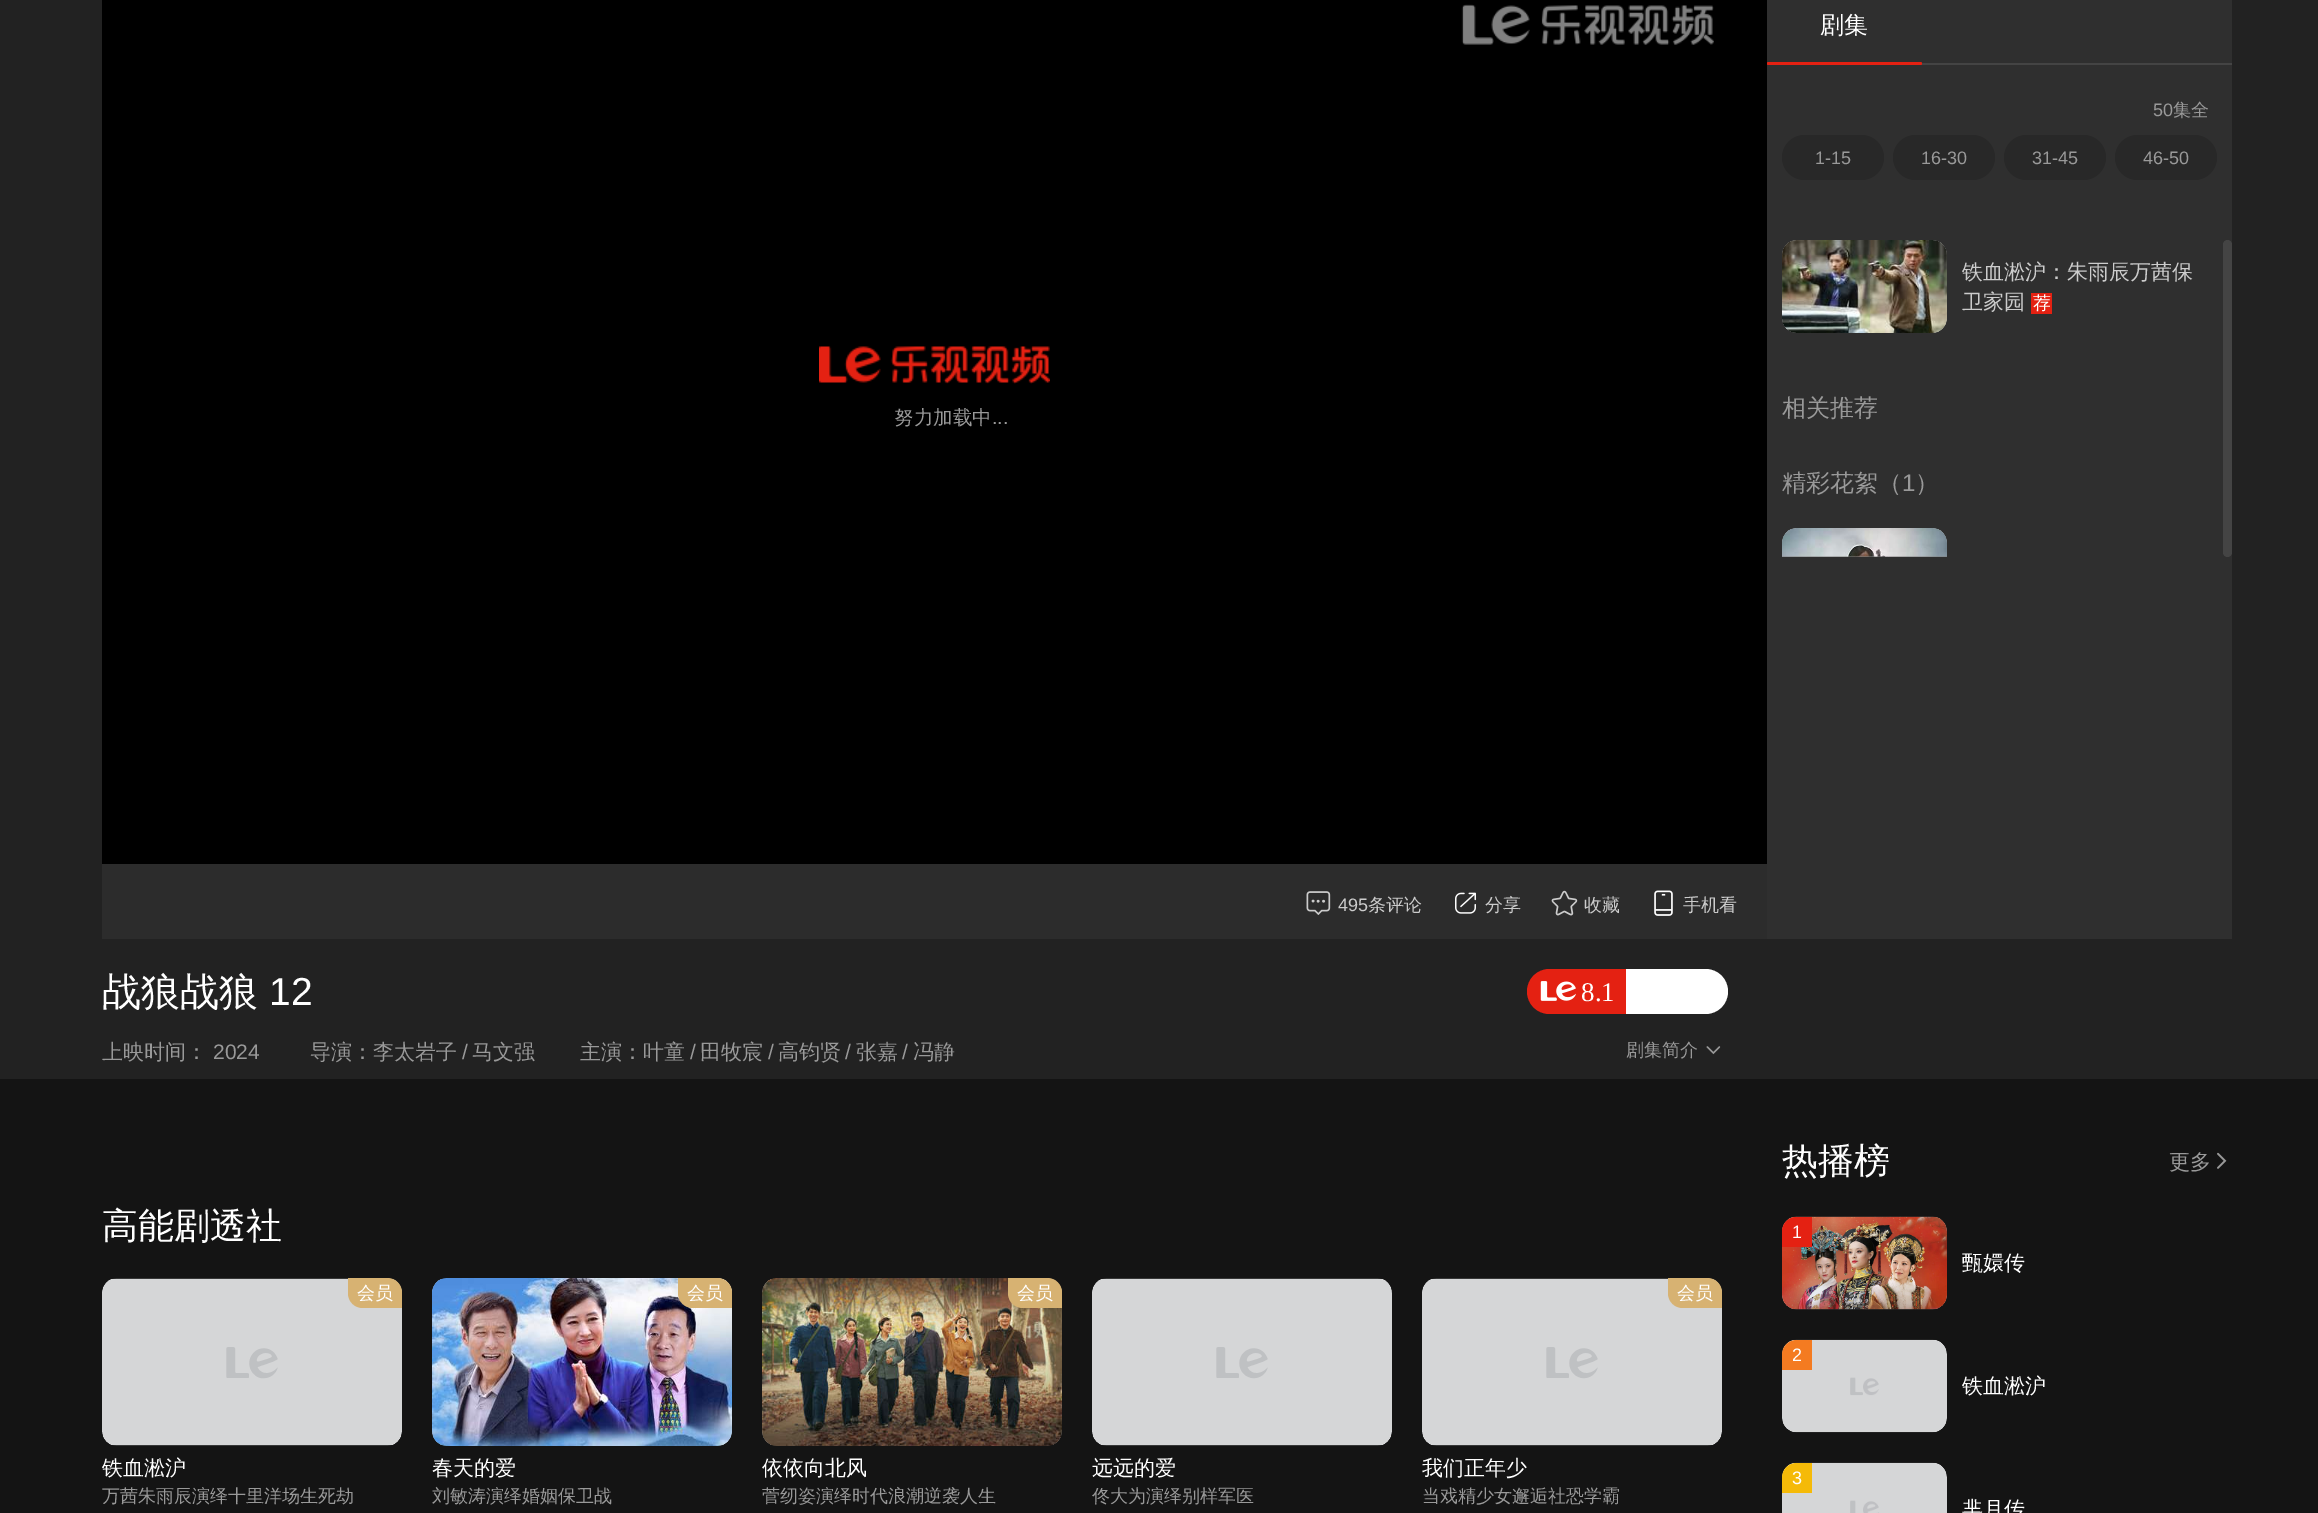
%!PS-Adobe-3.0
%%BoundingBox: 0 0 2318 1513
%%LanguageLevel: 3
%%Pages: 1
%%EndComments
%%BeginProlog
/rrect { 5 dict begin { /r /h /w /y /x } { exch def } forall
  x r add y moveto x w add y 2 copy h add r arct x w add y h add x 1 index r arct
  x y h add x y r arct x y 2 copy exch w add exch r arct closepath end } def
/drawimage { 5 dict begin { /h /w /y /x /name } { exch def } forall
  gsave x y translate w h scale
  w h 8 [w 0 0 h 0 0] name (r) file false 3 colorimage grestore end } def
%%EndProlog
%%BeginSetup
<< /PageSize [2318 1513] >> setpagedevice
%%EndSetup
%%Page: 1 1
0 1513 translate 1 -1 scale
4 setmiterlimit
0.078 setgray
0 0 2318 1513 rectfill
0.133 setgray
0 0 2318 1079 rectfill
0.184 setgray
1767 0 465 939 rectfill
0.267 setgray
1767 63 465 2 rectfill
0.894 0.129 0.071 setrgbcolor
1767 62 155 3 1.5 rrect fill
0.157 setgray
1782 135 102 45 22.5 rrect fill
1893 135 102 45 22.5 rrect fill
2004 135 102 45 22.5 rrect fill
2115 135 102 45 22.5 rrect fill
(images/1.raw) 1782 240 165 93 drawimage
(images/2.raw) 1782 240 165 93 drawimage
0.894 0.129 0.071 setrgbcolor
2031 293 21 21 rectfill
(images/3.raw) 1782 528 165 29 drawimage
(images/4.raw) 1782 528 165 29 drawimage
0.267 setgray
2223 240 9 317 4.5 rrect fill
0 setgray
102 0 1665 864 rectfill
(images/5.raw) 1461 4 253 41 drawimage
(images/6.raw) 819 346 231 38 drawimage
0.173 setgray
102 864 1665 75 rectfill
(images/7.raw) 1306 891 25 24 drawimage
(images/8.raw) 1455 892 21 22 drawimage
(images/9.raw) 1551 890 27 26 drawimage
(images/10.raw) 1654 890 19 26 drawimage
0.894 0.129 0.071 setrgbcolor
newpath 1549.5 969 moveto 1626 969 lineto 1626 1014 lineto 1549.5 1014 lineto 1537 1014 1527 1004 1527 991.5 curveto 1527 979 1537 969 1549.5 969 curveto closepath fill
(images/11.raw) 1540 981 36 20 drawimage
1 setgray
newpath 1626 969 moveto 1705.5 969 lineto 1718 969 1728 979 1728 991.5 curveto 1728 1004 1718 1014 1705.5 1014 curveto 1626 1014 lineto closepath fill
(images/12.raw) 1706 1046 15 9 drawimage
(images/13.raw) 102 1278 300 168 drawimage
0.843 0.698 0.447 setrgbcolor
newpath 348 1278 moveto 387 1278 lineto 395.5 1278 402 1284.5 402 1293 curveto 402 1308 lineto 363 1308 lineto 354.5 1308 348 1301.5 348 1293 curveto closepath fill
(images/14.raw) 432 1278 300 168 drawimage
(images/15.raw) 432 1278 300 168 drawimage
newpath 678 1278 moveto 717 1278 lineto 725.5 1278 732 1284.5 732 1293 curveto 732 1308 lineto 693 1308 lineto 684.5 1308 678 1301.5 678 1293 curveto closepath fill
(images/16.raw) 762 1278 300 168 drawimage
(images/17.raw) 762 1278 300 168 drawimage
newpath 1008 1278 moveto 1047 1278 lineto 1055.5 1278 1062 1284.5 1062 1293 curveto 1062 1308 lineto 1023 1308 lineto 1014.5 1308 1008 1301.5 1008 1293 curveto closepath fill
(images/14.raw) 1092 1278 300 168 drawimage
(images/14.raw) 1422 1278 300 168 drawimage
newpath 1668 1278 moveto 1707 1278 lineto 1715.5 1278 1722 1284.5 1722 1293 curveto 1722 1308 lineto 1683 1308 lineto 1674.5 1308 1668 1301.5 1668 1293 curveto closepath fill
(images/18.raw) 2217 1152 10 17 drawimage
(images/19.raw) 1782 1216 165 94 drawimage
(images/20.raw) 1782 1216 165 94 drawimage
0.894 0.129 0.071 setrgbcolor
newpath 1797 1217 moveto 1812 1217 lineto 1812 1247 lineto 1782 1247 lineto 1782 1232 lineto 1782 1223.5 1788.5 1217 1797 1217 curveto closepath fill
(images/19.raw) 1782 1339 165 94 drawimage
0.957 0.482 0.129 setrgbcolor
newpath 1797 1340 moveto 1812 1340 lineto 1812 1370 lineto 1782 1370 lineto 1782 1355 lineto 1782 1346.5 1788.5 1340 1797 1340 curveto closepath fill
(images/21.raw) 1782 1462 165 51 drawimage
0.961 0.729 0.031 setrgbcolor
newpath 1797 1463 moveto 1812 1463 lineto 1812 1493 lineto 1782 1493 lineto 1782 1478 lineto 1782 1469.5 1788.5 1463 1797 1463 curveto closepath fill
/WenQuanYiZenHei-Medium [24 0 0 -24 0 0] selectfont
1 setgray
1820 33 moveto (剧集) show
/LiberationSans-Regular [18 0 0 -18 0 0] selectfont
0.6 setgray
2153 116 moveto (50) show
/WenQuanYiZenHei-Medium [18 0 0 -18 0 0] selectfont
2173 116 moveto (集全) show
/LiberationSans-Regular [18 0 0 -18 0 0] selectfont
1815 164 moveto (1-15) show
1921 164 moveto (16-30) show
2032 164 moveto (31-45) show
2143 164 moveto (46-50) show
/WenQuanYiZenHei-Medium [21 0 0 -21 0 0] selectfont
0.8 setgray
1962 279 moveto (铁血淞沪：朱雨辰万茜保) show
1962 309 moveto (卫家园) show
/WenQuanYiZenHei-Medium [18 0 0 -18 0 0] selectfont
1 setgray
2033 309 moveto (荐) show
/WenQuanYiZenHei-Medium [24 0 0 -24 0 0] selectfont
0.6 setgray
1782 416 moveto (相关推荐) show
1782 491 moveto (精彩花絮（) show
/LiberationSans-Regular [24 0 0 -24 0 0] selectfont
1902 491 moveto (1) show
/WenQuanYiZenHei-Medium [24 0 0 -24 0 0] selectfont
1915 491 moveto (）) show
/WenQuanYiZenHei-Medium [19.5 0 0 -19.5 0 0] selectfont
894 424 moveto (努力加载中) show
/LiberationSans-Regular [19.5 0 0 -19.5 0 0] selectfont
992 424 moveto (...) show
/LiberationSans-Regular [18 0 0 -18 0 0] selectfont
0.8 setgray
1338 911 moveto (495) show
/WenQuanYiZenHei-Medium [18 0 0 -18 0 0] selectfont
1368 911 moveto (条) show
1386 911 moveto (评论) show
1485 911 moveto (分享) show
1584 911 moveto (收藏) show
1683 911 moveto (手机看) show
/WenQuanYiZenHei-Medium [39 0 0 -39 0 0] selectfont
1 setgray
102 1005 moveto (战狼战狼) show
/LiberationSans-Regular [39 0 0 -39 0 0] selectfont
269 1005 moveto (12) show
/WenQuanYiZenHei-Medium [21 0 0 -21 0 0] selectfont
0.6 setgray
102 1059 moveto (上映时间：) show
/LiberationSans-Regular [21 0 0 -21 0 0] selectfont
213 1059 moveto (2024) show
/WenQuanYiZenHei-Medium [21 0 0 -21 0 0] selectfont
310 1059 moveto (导演：李太岩子) show
/LiberationSans-Regular [21 0 0 -21 0 0] selectfont
462 1059 moveto (/) show
/WenQuanYiZenHei-Medium [21 0 0 -21 0 0] selectfont
472 1059 moveto (马文强) show
580 1059 moveto (主演：叶童) show
/LiberationSans-Regular [21 0 0 -21 0 0] selectfont
690 1059 moveto (/) show
/WenQuanYiZenHei-Medium [21 0 0 -21 0 0] selectfont
700 1059 moveto (田牧宸) show
/LiberationSans-Regular [21 0 0 -21 0 0] selectfont
768 1059 moveto (/) show
/WenQuanYiZenHei-Medium [21 0 0 -21 0 0] selectfont
778 1059 moveto (高钧贤) show
/LiberationSans-Regular [21 0 0 -21 0 0] selectfont
845 1059 moveto (/) show
/WenQuanYiZenHei-Medium [21 0 0 -21 0 0] selectfont
856 1059 moveto (张嘉) show
/LiberationSans-Regular [21 0 0 -21 0 0] selectfont
902 1059 moveto (/) show
/WenQuanYiZenHei-Medium [21 0 0 -21 0 0] selectfont
913 1059 moveto (冯静) show
/LiberationSerif-Regular [27 0 0 -27 0 0] selectfont
1 setgray
1581 1001 moveto (8.1) show
/WenQuanYiZenHei-Medium [18 0 0 -18 0 0] selectfont
0.6 setgray
1626 1056 moveto (剧集简介) show
/WenQuanYiZenHei-Medium [36 0 0 -36 0 0] selectfont
1 setgray
102 1238 moveto (高能剧透社) show
/WenQuanYiZenHei-Medium [18 0 0 -18 0 0] selectfont
357 1299 moveto (会员) show
/WenQuanYiZenHei-Medium [21 0 0 -21 0 0] selectfont
102 1475 moveto (铁血淞沪) show
/WenQuanYiZenHei-Medium [18 0 0 -18 0 0] selectfont
0.6 setgray
102 1502 moveto (万茜朱雨辰演绎十里洋场生死劫) show
1 setgray
687 1299 moveto (会员) show
/WenQuanYiZenHei-Medium [21 0 0 -21 0 0] selectfont
432 1475 moveto (春天的爱) show
/WenQuanYiZenHei-Medium [18 0 0 -18 0 0] selectfont
0.6 setgray
432 1502 moveto (刘敏涛演绎婚姻保卫战) show
1 setgray
1017 1299 moveto (会员) show
/WenQuanYiZenHei-Medium [21 0 0 -21 0 0] selectfont
762 1475 moveto (依依向北风) show
/WenQuanYiZenHei-Medium [18 0 0 -18 0 0] selectfont
0.6 setgray
762 1502 moveto (菅纫姿演绎时代浪潮逆袭人生) show
/WenQuanYiZenHei-Medium [21 0 0 -21 0 0] selectfont
1 setgray
1092 1475 moveto (远远的爱) show
/WenQuanYiZenHei-Medium [18 0 0 -18 0 0] selectfont
0.6 setgray
1092 1502 moveto (佟大为演绎别样军医) show
1 setgray
1677 1299 moveto (会员) show
/WenQuanYiZenHei-Medium [21 0 0 -21 0 0] selectfont
1422 1475 moveto (我们正年少) show
/WenQuanYiZenHei-Medium [18 0 0 -18 0 0] selectfont
0.6 setgray
1422 1502 moveto (当戏精少女邂逅社恐学霸) show
/WenQuanYiZenHei-Medium [36 0 0 -36 0 0] selectfont
1 setgray
1782 1173 moveto (热播榜) show
/WenQuanYiZenHei-Medium [21 0 0 -21 0 0] selectfont
0.6 setgray
2169 1169 moveto (更多) show
/LiberationSans-Regular [18 0 0 -18 0 0] selectfont
1 setgray
1792 1238 moveto (1) show
/WenQuanYiZenHei-Medium [21 0 0 -21 0 0] selectfont
1962 1270 moveto (甄嬛传) show
/LiberationSans-Regular [18 0 0 -18 0 0] selectfont
1792 1361 moveto (2) show
/WenQuanYiZenHei-Medium [21 0 0 -21 0 0] selectfont
1962 1393 moveto (铁血淞沪) show
/LiberationSans-Regular [18 0 0 -18 0 0] selectfont
1792 1484 moveto (3) show
/WenQuanYiZenHei-Medium [21 0 0 -21 0 0] selectfont
1962 1516 moveto (芈月传) show
showpage
%%EOF
